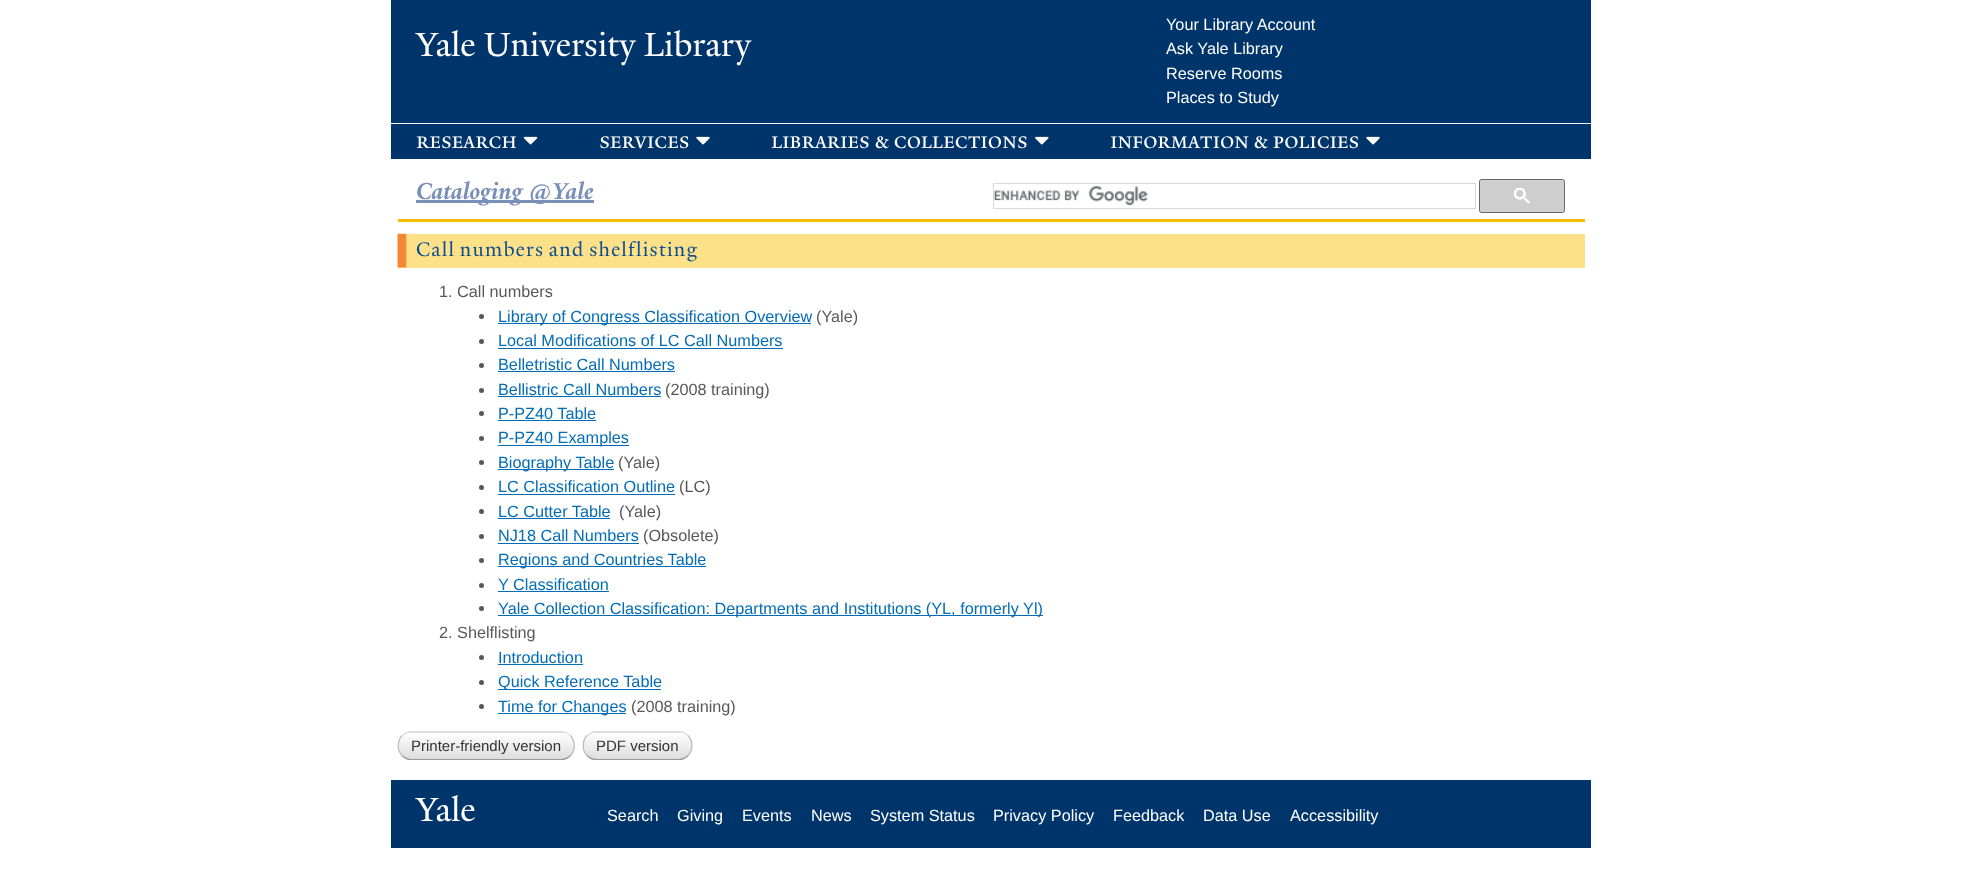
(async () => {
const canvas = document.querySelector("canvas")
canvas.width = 1982
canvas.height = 876
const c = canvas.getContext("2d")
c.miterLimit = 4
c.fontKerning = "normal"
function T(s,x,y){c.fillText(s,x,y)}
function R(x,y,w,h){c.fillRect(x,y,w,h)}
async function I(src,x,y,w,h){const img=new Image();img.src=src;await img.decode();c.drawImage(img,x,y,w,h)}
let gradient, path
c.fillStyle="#fff"
R(0,0,1982,876)
c.fillStyle="#00356b"
R(391,0,1200,123)
c.font="36.25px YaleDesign"
c.fillStyle="#fff"
T("Yale University Library",416,56)
c.font="16.25px Liberation Sans"
T("Your Library Account",1166,30)
T("Ask Yale Library",1166,54)
T("Reserve Rooms",1166,79)
T("Places to Study",1166,103)
c.fillStyle="#00356b"
R(391,124,1200,35)
c.letterSpacing="-0.4px"
c.font="500 23.75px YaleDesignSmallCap"
c.fillStyle="#fff"
T("research",416,148)
await I("1.png",523,136,15,9)
T("services",599,148)
await I("2.png",696,136,14,9)
T("libraries & collections",771,148)
await I("3.png",1035,136,14,9)
T("information & policies",1110,148)
await I("2.png",1366,136,14,9)
c.fillStyle="#f9be00"
R(398,219,1187,3)
c.fillStyle="#798fb8"
R(416,200,178,3)
c.letterSpacing="0px"
c.font="italic bold 25px YaleDesign"
T("Cataloging @Yale",416,199)
c.strokeStyle="#d9d9d9"
c.strokeRect(993.5,183.5,482,25)
await I("4.png",993,186,155,19)
c.fillStyle="#cecece"
c.beginPath()
c.roundRect(1479.5,179.5,85,33,2)
c.fill()
c.strokeStyle="#666"
c.stroke()
await I("5.png",1514,188,16,16)
c.fillStyle="#fce188"
R(398,234,1187,34)
await I("6.png",397,233,16,35)
c.letterSpacing="1.25px"
c.wordSpacing="-1.5px"
c.font="21.25px YaleDesign"
c.fillStyle="#0f4d92"
T("Call numbers and shelflisting",416,256)
c.letterSpacing="0px"
c.wordSpacing="0px"
c.font="16.25px Liberation Sans"
c.fillStyle="#585858"
T("1. Call numbers",439,297)
c.beginPath()
c.arc(481.5,316.5,2.5,0,7)
c.fill()
c.fillStyle="#026cb6"
R(498,323,313,1)
T("Library of Congress Classification Overview",498,322)
c.fillStyle="#585858"
T("(Yale)",816,322)
c.beginPath()
c.arc(481.5,341.5,2.5,0,7)
c.fill()
c.fillStyle="#026cb6"
T("Local Modifications of LC Call Numbers",498,346)
R(498,348,285,1)
c.fillStyle="#585858"
c.beginPath()
c.arc(481.5,365.5,2.5,0,7)
c.fill()
c.fillStyle="#026cb6"
T("Belletristic Call Numbers",498,370)
R(498,371,177,1)
c.fillStyle="#585858"
c.beginPath()
c.arc(481.5,390.5,2.5,0,7)
c.fill()
c.fillStyle="#026cb6"
T("Bellistric Call Numbers",498,395)
R(498,396,163,1)
c.fillStyle="#585858"
T("(2008 training)",665,395)
c.beginPath()
c.arc(481.5,413.5,2.5,0,7)
c.fill()
c.fillStyle="#026cb6"
T("P-PZ40 Table",498,419)
R(498,420,98,1)
c.fillStyle="#585858"
c.beginPath()
c.arc(481.5,438.5,2.5,0,7)
c.fill()
c.fillStyle="#026cb6"
R(498,445,131,1)
T("P-PZ40 Examples",498,443)
c.fillStyle="#585858"
c.beginPath()
c.arc(481.5,462.5,2.5,0,7)
c.fill()
c.fillStyle="#026cb6"
R(498,469,116,1)
T("Biography Table",498,468)
c.fillStyle="#585858"
T("(Yale)",618,468)
c.beginPath()
c.arc(481.5,487.5,2.5,0,7)
c.fill()
c.fillStyle="#026cb6"
T("LC Classification Outline",498,492)
R(498,494,177,1)
c.fillStyle="#585858"
T("(LC)",679,492)
c.beginPath()
c.arc(481.5,511.5,2.5,0,7)
c.fill()
c.fillStyle="#026cb6"
T("LC Cutter Table",498,517)
R(498,518,112,1)
c.fillStyle="#585858"
T("(Yale)",619,517)
c.beginPath()
c.arc(481.5,536.5,2.5,0,7)
c.fill()
c.fillStyle="#026cb6"
T("NJ18 Call Numbers",498,541)
R(498,543,141,1)
c.fillStyle="#585858"
T("(Obsolete)",643,541)
c.beginPath()
c.arc(481.5,560.5,2.5,0,7)
c.fill()
c.fillStyle="#026cb6"
R(498,566,208,1)
T("Regions and Countries Table",498,565)
c.fillStyle="#585858"
c.beginPath()
c.arc(481.5,585.5,2.5,0,7)
c.fill()
c.fillStyle="#026cb6"
T("Y Classification",498,590)
R(498,591,111,1)
c.fillStyle="#585858"
c.beginPath()
c.arc(481.5,608.5,2.5,0,7)
c.fill()
c.fillStyle="#026cb6"
R(498,615,545,1)
T("Yale Collection Classification: Departments and Institutions (YL, formerly Yl)",498,614)
c.fillStyle="#585858"
T("2. Shelflisting",439,638)
c.beginPath()
c.arc(481.5,657.5,2.5,0,7)
c.fill()
c.fillStyle="#026cb6"
T("Introduction",498,663)
R(498,664,85,1)
c.fillStyle="#585858"
c.beginPath()
c.arc(481.5,682.5,2.5,0,7)
c.fill()
c.fillStyle="#026cb6"
R(498,689,163,1)
T("Quick Reference Table",498,687)
c.fillStyle="#585858"
c.beginPath()
c.arc(481.5,706.5,2.5,0,7)
c.fill()
c.fillStyle="#026cb6"
R(498,713,128,1)
T("Time for Changes",498,712)
c.fillStyle="#585858"
T("(2008 training)",631,712)
c.save()
c.beginPath()
c.roundRect(398,731,177,29,14)
c.clip()
gradient = c.createLinearGradient(399,706,399,733)
gradient.addColorStop(0,"#fff")
gradient.addColorStop(1,"#ddd")
c.fillStyle = gradient
R(398,731,177,2)
gradient = c.createLinearGradient(399,733,399,759)
gradient.addColorStop(0,"#fff")
gradient.addColorStop(1,"#ddd")
c.fillStyle = gradient
R(398,733,177,26)
c.restore()
path = new Path2D("M402 735.5c2.5-2 6-3.5 9-3.5h150c3.5 0 7 1.5 9.5 3.5")
c.strokeStyle="#ddd"
c.lineWidth=1.2
c.stroke(path)
path = new Path2D("M570.5 735.5c5 5.5 5 15 0 20")
c.strokeStyle="#bbb"
c.stroke(path)
path = new Path2D("M570.5 755.5c-2.5 2.5-6 4-9.5 4h-150c-3 0-6.5-1.5-9-4")
c.strokeStyle="#999"
c.stroke(path)
path = new Path2D("M402 755.5c-5-5-5-14.5 0-20")
c.strokeStyle="#bbb"
c.stroke(path)
c.font="15px Liberation Sans"
c.fillStyle="#333"
T("Printer-friendly version",411,751)
c.save()
c.beginPath()
c.roundRect(583,731,110,29,14)
c.clip()
gradient = c.createLinearGradient(584,706,584,733)
gradient.addColorStop(0,"#fff")
gradient.addColorStop(1,"#ddd")
c.fillStyle = gradient
R(583,731,110,2)
gradient = c.createLinearGradient(584,733,584,759)
gradient.addColorStop(0,"#fff")
gradient.addColorStop(1,"#ddd")
c.fillStyle = gradient
R(583,733,110,26)
c.restore()
path = new Path2D("M587 735.5c2.5-2 6-3.5 9-3.5h83c3 0 6.5 1.5 9 3.5")
c.strokeStyle="#ddd"
c.stroke(path)
path = new Path2D("M688 735.5c5 5.5 5 15 0 20")
c.strokeStyle="#bbb"
c.stroke(path)
path = new Path2D("M688 755.5c-2.5 2.5-6 4-9 4h-83c-3 0-6.5-1.5-9-4")
c.strokeStyle="#999"
c.stroke(path)
path = new Path2D("M587 755.5c-5-5-5-14.5 0-20")
c.strokeStyle="#bbb"
c.stroke(path)
T("PDF version",596,751)
c.fillStyle="#00356b"
R(391,780,1200,68)
c.font="36.25px YaleDesign"
c.fillStyle="#fff"
T("Yale",416,821)
c.font="16.25px Liberation Sans"
T("Search",607,821)
T("Giving",677,821)
T("Events",742,821)
T("News",811,821)
T("System Status",870,821)
T("Privacy Policy",993,821)
T("Feedback",1113,821)
T("Data Use",1203,821)
T("Accessibility",1290,821)
})()
